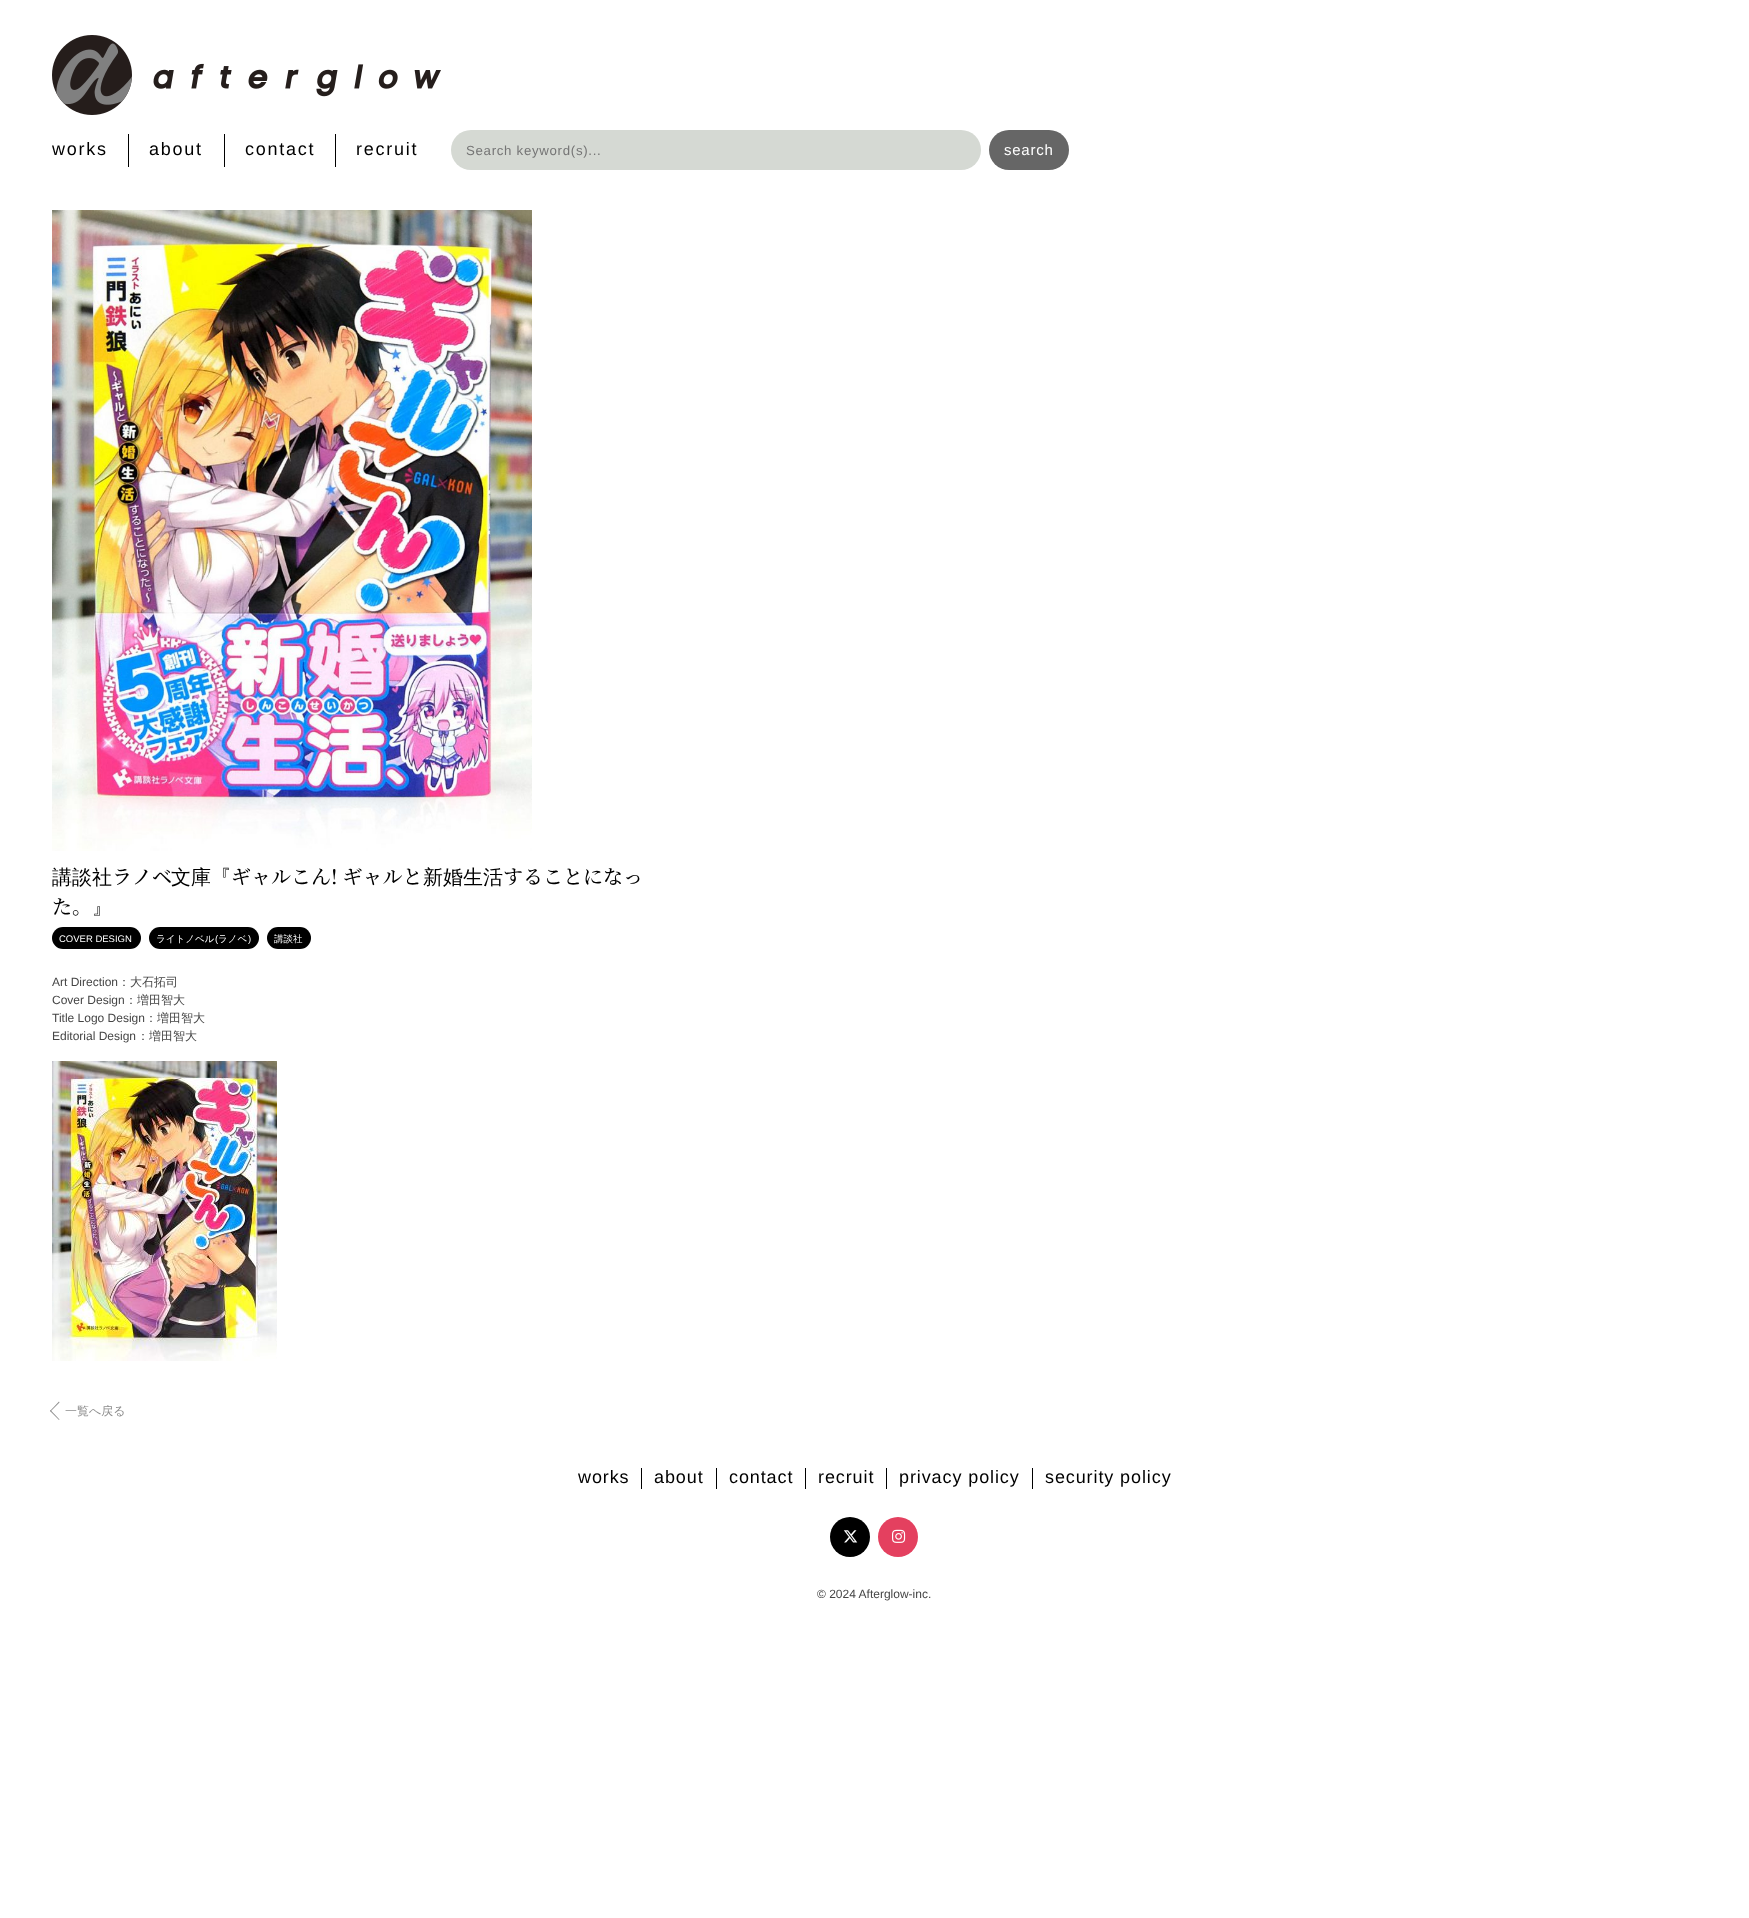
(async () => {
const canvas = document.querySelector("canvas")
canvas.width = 1749
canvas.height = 1918
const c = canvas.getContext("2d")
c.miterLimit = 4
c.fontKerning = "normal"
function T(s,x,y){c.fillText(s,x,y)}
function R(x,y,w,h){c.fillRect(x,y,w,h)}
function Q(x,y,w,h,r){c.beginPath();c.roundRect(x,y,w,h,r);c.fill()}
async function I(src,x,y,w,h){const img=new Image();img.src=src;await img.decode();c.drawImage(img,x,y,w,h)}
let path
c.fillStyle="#fff"
R(0,0,1749,1918)
await I("1.png",52,35,389,80)
c.letterSpacing="1.75px"
c.font="18px 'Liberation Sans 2'"
c.fillStyle="#000"
T("works",52,155)
R(128,134,1,33)
T("about",149,155)
R(224,134,1,33)
T("contact",245,155)
R(335,134,1,33)
T("recruit",356,155)
c.fillStyle="#d5d9d3"
Q(451,130,530,40,20)
c.letterSpacing="0.7px"
c.font="13.25px 'Liberation Sans 2'"
c.fillStyle="#757575"
T("Search keyword(s)...",466,155)
c.fillStyle="#666"
Q(989,130,80,40,20)
c.letterSpacing="0.75px"
c.font="15px 'Liberation Sans 2'"
c.fillStyle="#fff"
T("search",1004,155)
await I("2.png",52,210,480,641)
c.letterSpacing="0px"
c.font="500 20px WenQuanYi Zen Hei"
c.fillStyle="#000"
T("講談社",52,884)
c.font="500 20px Noto Serif JP"
T("ラノベ",112,884)
c.font="500 20px WenQuanYi Zen Hei"
T("文庫『",171,884)
c.font="500 20px Noto Serif JP"
T("ギャルこん! ギャルと",231,884)
c.font="500 20px WenQuanYi Zen Hei"
T("新婚生活",423,884)
c.font="500 20px Noto Serif JP"
T("することになっ",503,884)
T("た。",52,914)
c.font="500 20px WenQuanYi Zen Hei"
T("』",92,914)
Q(52,927,89,22,11)
c.font="9.5px 'Liberation Sans 2'"
c.fillStyle="#fff"
T("COVER DESIGN",59,942)
c.fillStyle="#000"
Q(149,927,110,22,11)
c.font="500 9.5px WenQuanYi Zen Hei"
c.fillStyle="#fff"
T("ライトノベル",156,942)
c.font="9.5px 'Liberation Sans 2'"
T("(",215,942)
c.font="500 9.5px WenQuanYi Zen Hei"
T("ラノベ",218,942)
c.font="9.5px 'Liberation Sans 2'"
T(")",248,942)
c.fillStyle="#000"
Q(267,927,44,22,11)
c.font="500 9.5px WenQuanYi Zen Hei"
c.fillStyle="#fff"
T("講談社",274,942)
c.font="12px Liberation Sans"
c.fillStyle="#454545"
T("Art Direction",52,986)
c.font="500 12px WenQuanYi Zen Hei"
T("：大石拓司",118,986)
c.font="12px Liberation Sans"
T("Cover Design",52,1004)
c.font="500 12px WenQuanYi Zen Hei"
T("：増田智大",125,1004)
c.font="12px Liberation Sans"
T("Title Logo Design",52,1022)
c.font="500 12px WenQuanYi Zen Hei"
T("：増田智大",145,1022)
c.font="12px Liberation Sans"
T("Editorial Design",52,1040)
c.font="500 12px WenQuanYi Zen Hei"
T("：増田智大",137,1040)
await I("3.png",52,1061,225,300)
c.fillStyle="#8e8e8e"
path = new Path2D("M50.5 1410l9 9.5l-.5 .5l-9-9z")
c.fill(path)
path = new Path2D("M59 1401.5l.5 1l-9 9l-.5-.5z")
c.fill(path)
T("一覧へ戻る",65,1415)
c.letterSpacing="0.9px"
c.font="18px 'Liberation Sans 2'"
c.fillStyle="#000"
T("works",578,1483)
R(641,1468,1,21)
T("about",654,1483)
R(716,1468,1,21)
T("contact",729,1483)
R(805,1468,1,21)
T("recruit",818,1483)
R(886,1468,1,21)
T("privacy policy",899,1483)
R(1032,1468,1,21)
T("security policy",1045,1483)
c.beginPath()
c.arc(850,1537,20,0,7)
c.fill()
await I("4.png",843,1530,15,13)
c.fillStyle="#e4405f"
c.beginPath()
c.arc(898,1537,20,0,7)
c.fill()
await I("5.png",892,1529,14,14)
c.letterSpacing="0px"
c.font="12px Liberation Sans"
c.fillStyle="#454545"
T("© 2024 Afterglow-inc.",817,1598)
})()
